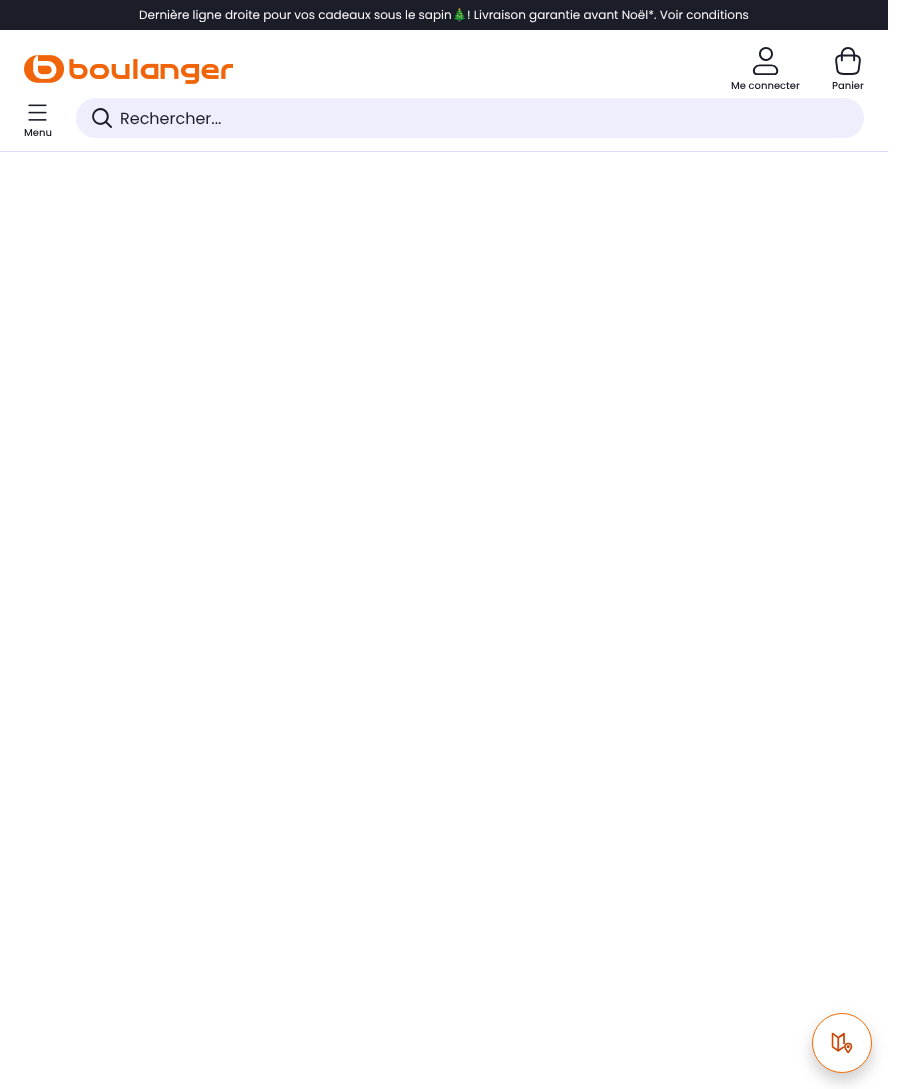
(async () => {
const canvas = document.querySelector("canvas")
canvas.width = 906
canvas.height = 1089
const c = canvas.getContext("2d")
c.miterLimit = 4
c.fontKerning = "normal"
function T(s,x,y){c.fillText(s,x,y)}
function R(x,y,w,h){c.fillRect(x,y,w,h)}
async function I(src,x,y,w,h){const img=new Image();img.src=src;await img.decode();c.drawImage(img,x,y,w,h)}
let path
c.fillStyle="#fff"
R(0,0,906,1089)
c.fillStyle="#1b1d29"
R(0,0,888,30)
c.save()
c.beginPath()
c.rect(139,8,610,14)
c.clip()
c.font="12px Poppins"
c.fillStyle="#fff"
T("Dernière ligne droite pour vos cadeaux sous le sapin",139,19)
c.restore()
c.font="12px Noto Color Emoji"
c.fillStyle="#fff"
T("🎄",452,19)
c.font="12px Poppins"
T("! Livraison garantie avant Noël*. Voir conditions",467,19)
c.save()
path = new Path2D("M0 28h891v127h-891zm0 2h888v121h-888z")
c.clip(path,"evenodd")
c.fillStyle="#dbdbf9"
c.filter="blur(0.5px)"
c.beginPath()
c.rect(0,31,888,121)
c.fill()
c.filter="none"
c.restore()
await I("1.png",24,55,209,29)
await I("2.png",752,47,27,28)
c.font="500 10px Poppins"
c.fillStyle="#1b1d29"
T("Me connecter",731,89)
await I("3.png",835,47,26,28)
T("Panier",832,89)
c.fillStyle="#efeefc"
c.beginPath()
c.roundRect(76,98,44,40,[20,0,0,20])
c.fill()
await I("4.png",92,108,20,20)
c.beginPath()
c.roundRect(120,98,744,40,[0,20,20,0])
c.fill()
c.font="16px Poppins"
c.fillStyle="#1b1d29"
T("Rechercher...",120,124)
await I("5.png",28,104,19,17)
c.font="500 10px Poppins"
T("Menu",24,136)
c.fillStyle="#3b3b3b40"
c.filter="blur(7.5px)"
c.beginPath()
c.roundRect(812,1021,60,60,30)
c.fill()
c.filter="none"
c.fillStyle="#fff"
c.beginPath()
c.arc(842,1043,29.5,0,7)
c.fill()
c.strokeStyle="#f56a00"
c.stroke()
await I("6.png",831,1032,22,22)
})()
